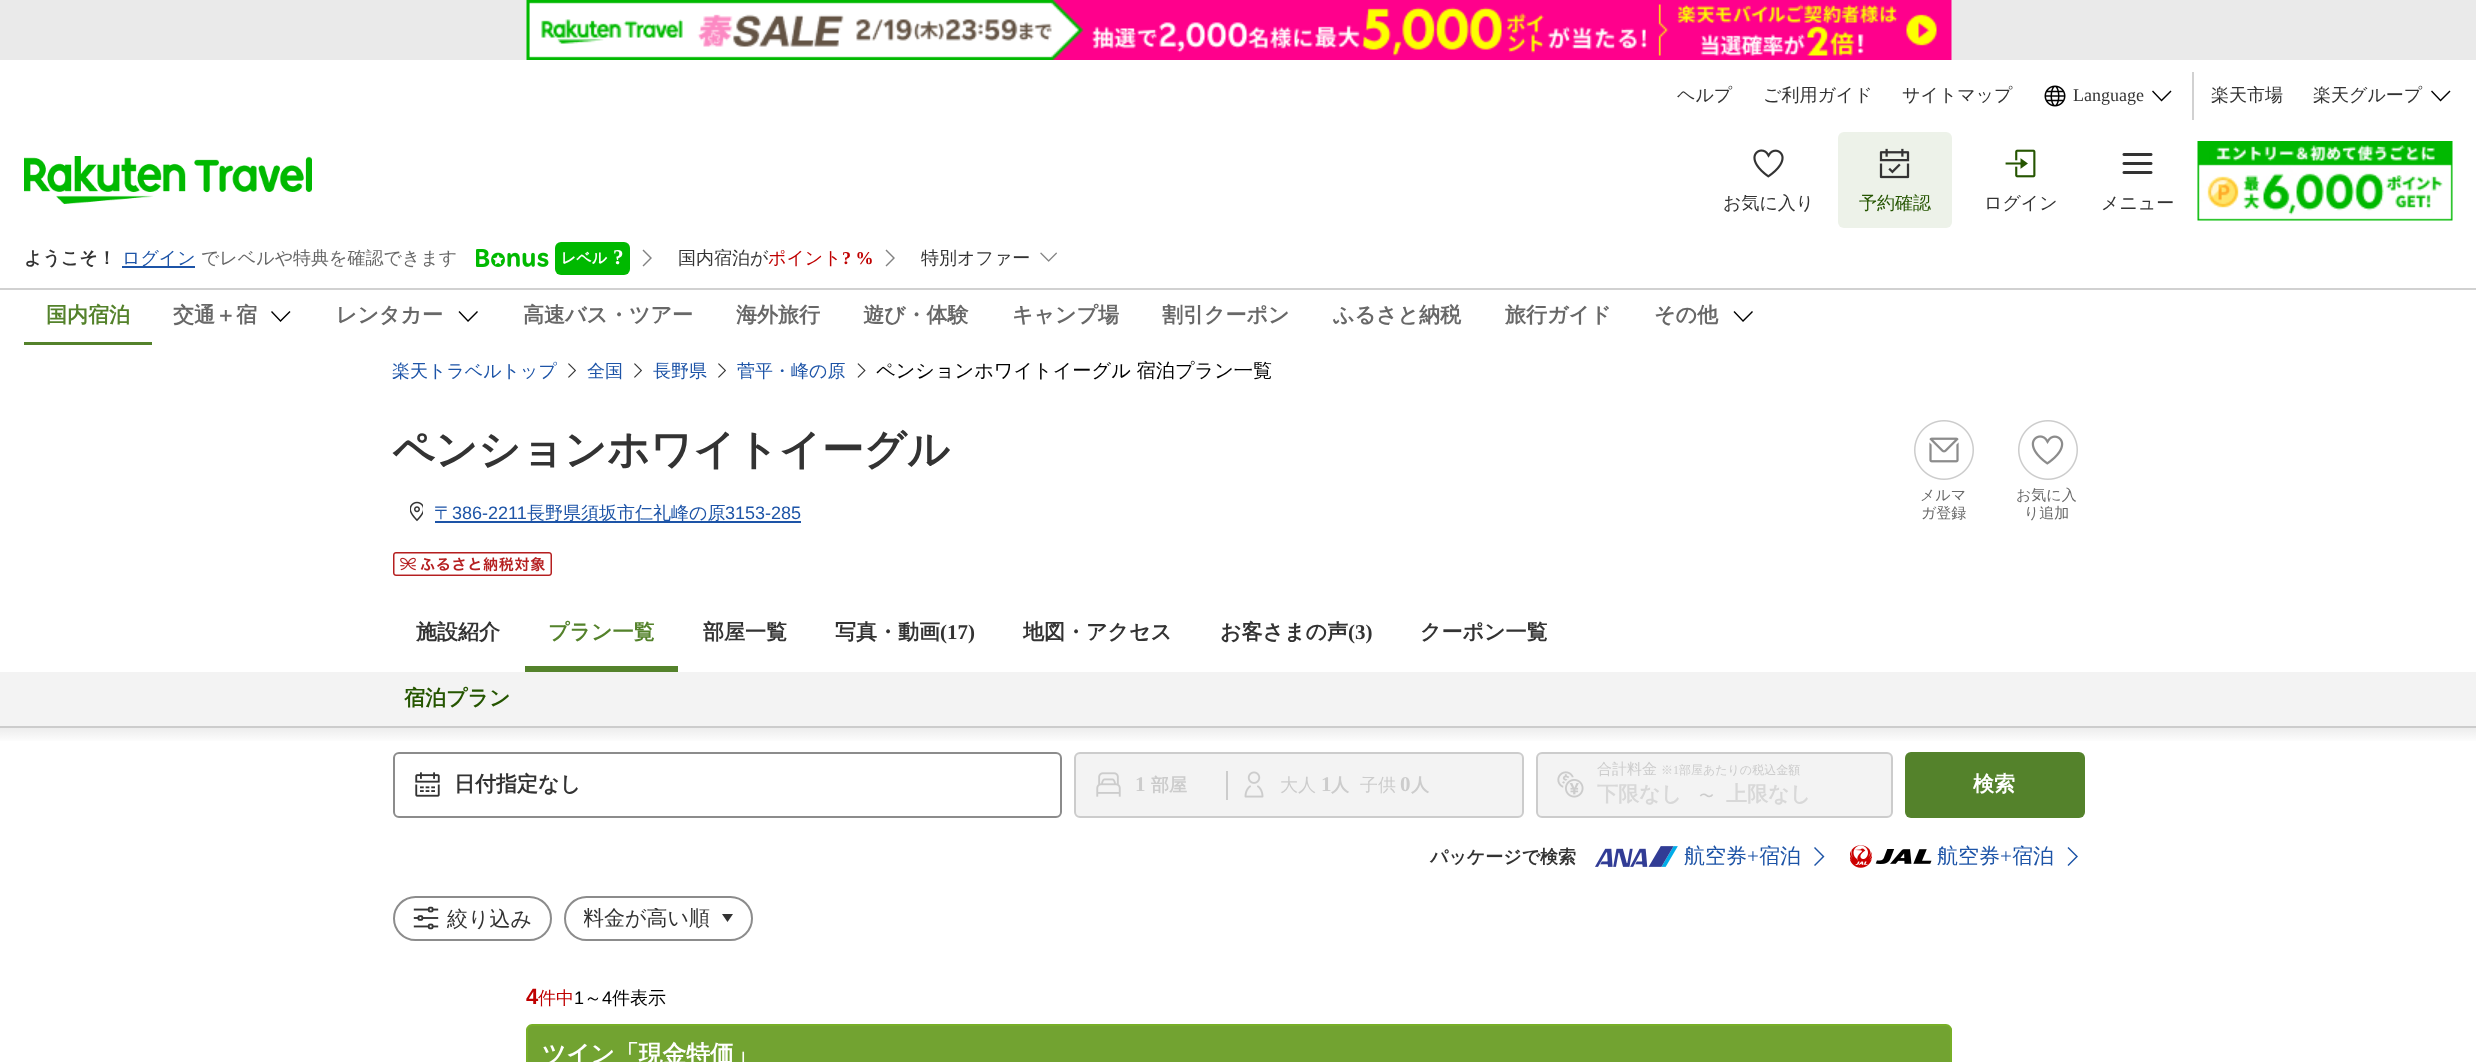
(async () => {
const canvas = document.querySelector("canvas")
canvas.width = 2476
canvas.height = 1062
const c = canvas.getContext("2d")
c.miterLimit = 4
c.fontKerning = "normal"
function T(s,x,y){c.fillText(s,x,y)}
function R(x,y,w,h){c.fillRect(x,y,w,h)}
function Q(x,y,w,h,r){c.beginPath();c.roundRect(x,y,w,h,r);c.fill()}
async function I(src,x,y,w,h){const img=new Image();img.src=src;await img.decode();c.drawImage(img,x,y,w,h)}
let gradient, path
c.fillStyle="#fff"
R(0,0,2476,1062)
c.fillStyle="#eaeaea"
R(0,0,2476,60)
await I("1.png",526,0,1426,60)
c.font="500 18px WenQuanYi Zen Hei"
c.fillStyle="#333"
T("ヘルプ",1677,101)
T("ご利用ガイド",1763,101)
T("サイトマップ",1902,101)
await I("2.png",2044,85,22,22)
c.font="18px Liberation Serif"
T("Language",2073,101)
c.fillStyle="#000"
path = new Path2D("M2171.5 91.5l-1-1l-9 9l-8.5-9l-1 1l9.5 10z")
c.fill(path,"evenodd")
c.fillStyle="#d1d1d1"
R(2192,72,2,48)
c.font="500 18px WenQuanYi Zen Hei"
c.fillStyle="#333"
T("楽天市場",2211,101)
T("楽天グループ",2313,101)
c.fillStyle="#000"
path = new Path2D("M2450.5 91.5l-1-1l-9 9l-8.5-9l-1 1l9.5 10z")
c.fill(path,"evenodd")
await I("3.png",24,156,288,48)
await I("4.png",1753,149,31,29)
c.fillStyle="#333"
T("お気に入り",1723,209)
c.fillStyle="#edf2e9"
Q(1838,132,114,96,6)
await I("5.png",1879,148,31,31)
c.fillStyle="#255500"
T("予約確認",1859,209)
await I("6.png",2005,149,31,29)
c.fillStyle="#333"
T("ログイン",1984,209)
await I("7.png",2122,153,31,21)
T("メニュー",2101,209)
await I("8.png",2197,141,256,80)
c.font="bold 18px WenQuanYi Zen Hei"
T("ようこそ！",24,264)
c.fillStyle="#1d54a7"
R(122,266,73,2)
c.font="500 18px WenQuanYi Zen Hei"
T("ログイン",122,264)
c.fillStyle="#686868"
T("でレベルや特典を確認できます",201,264)
await I("9.png",476,249,73,18)
c.fillStyle="#00b900"
Q(555,242,75,33,6)
c.font="bold 15px WenQuanYi Zen Hei"
c.fillStyle="#fff"
T("レベル",561,263)
c.font="bold 21px Liberation Serif"
T("?",613,264)
c.fillStyle="#828282"
path = new Path2D("M643.5 249.5l-1 1l7.5 7.5l-7.5 7.5l1 1l8.5-8.5z")
c.fill(path,"evenodd")
c.font="500 18px WenQuanYi Zen Hei"
c.fillStyle="#333"
T("国内宿泊が",678,264)
c.fillStyle="#bf0000"
T("ポイント",768,264)
c.font="bold 18px Liberation Serif"
T("? %",842,264)
c.fillStyle="#828282"
path = new Path2D("M886.5 249.5l-1 1l7.5 7.5l-7.5 7.5l1 1l8.5-8.5z")
c.fill(path,"evenodd")
c.font="500 18px WenQuanYi Zen Hei"
c.fillStyle="#333"
T("特別オファー",921,264)
await I("10.png",1040,252,17,10)
c.fillStyle="#d1d1d1"
R(0,288,2476,2)
c.fillStyle="#54822b"
R(24,342,128,3)
c.font="bold 21px WenQuanYi Zen Hei"
T("国内宿泊",46,322)
c.fillStyle="#686868"
T("交通＋宿",173,322)
c.fillStyle="#000"
path = new Path2D("M290.5 312l-1-1l-9 9l-8.5-9l-1 1l9.5 10z")
c.fill(path,"evenodd")
c.fillStyle="#686868"
T("レンタカー",336,322)
c.fillStyle="#000"
path = new Path2D("M478 312l-1-1l-9 9l-8.5-9l-1 1l9.5 10z")
c.fill(path,"evenodd")
c.fillStyle="#686868"
T("高速バス・ツアー",523,322)
T("海外旅行",736,322)
T("遊び・体験",863,322)
T("キャンプ場",1012,322)
T("割引クーポン",1162,322)
T("ふるさと納税",1333,322)
T("旅行ガイド",1505,322)
T("その他",1654,322)
c.fillStyle="#000"
path = new Path2D("M1753 312l-1-1l-9 9l-8.5-9l-1 1l9.5 10z")
c.fill(path,"evenodd")
c.font="500 18px WenQuanYi Zen Hei"
c.fillStyle="#1d54a7"
T("楽天トラベルトップ",392,377)
await I("11.png",568,363,8,15)
T("全国",587,377)
await I("11.png",634,363,8,15)
T("長野県",653,377)
await I("11.png",718,363,8,15)
T("菅平・峰の原",737,377)
await I("12.png",857,363,9,15)
c.font="500 19.2px WenQuanYi Zen Hei"
c.fillStyle="#000"
T("ペンションホワイトイーグル 宿泊プラン一覧",876,377)
c.font="bold 42px WenQuanYi Zen Hei"
c.fillStyle="#333"
T("ペンションホワイトイーグル",392,464)
await I("13.png",410,501,13,21)
c.font="500 18px WenQuanYi Zen Hei"
c.fillStyle="#1d54a7"
T("〒",434,519)
R(435,521,366,2)
c.font="18px Liberation Sans"
T("386-2211",452,519)
c.font="500 18px WenQuanYi Zen Hei"
T("長野県須坂市仁礼峰の原",527,519)
c.font="18px Liberation Sans"
T("3153-285",725,519)
await I("14.png",393,552,159,24)
await I("15.png",1914,420,60,60)
c.font="500 15px WenQuanYi Zen Hei"
c.fillStyle="#686868"
T("メルマ",1920,500)
T("ガ登録",1921,518)
await I("16.png",2018,420,60,60)
T("お気に入",2016,500)
T("り追加",2024,518)
c.font="bold 21px WenQuanYi Zen Hei"
c.fillStyle="#333"
T("施設紹介",416,639)
c.fillStyle="#54822b"
R(525,666,153,6)
T("プラン一覧",548,639)
c.fillStyle="#333"
T("部屋一覧",703,639)
T("写真・動画",835,639)
c.font="bold 21px Liberation Serif"
T("(17)",940,639)
c.font="bold 21px WenQuanYi Zen Hei"
T("地図・アクセス",1023,639)
T("お客さまの声",1220,639)
c.font="bold 21px Liberation Serif"
T("(3)",1348,639)
c.font="bold 21px WenQuanYi Zen Hei"
T("クーポン一覧",1420,639)
gradient = c.createLinearGradient(1238,743,1238,728)
gradient.addColorStop(0,"#fff")
gradient.addColorStop(1,"#ededed")
c.fillStyle = gradient
R(0,728,2476,13)
c.fillStyle="#f3f3f3"
R(0,672,2476,54)
c.fillStyle="#ccc"
R(0,726,2476,2)
c.fillStyle="#255500"
T("宿泊プラン",404,705)
c.beginPath()
c.roundRect(394,753,667,64,5)
c.strokeStyle="#8c8c8c"
c.lineWidth=2
c.stroke()
await I("17.png",415,772,25,25)
c.fillStyle="#333"
T("日付指定なし",454,791)
c.fillStyle="#f3f3f3"
c.beginPath()
c.roundRect(1075,753,448,64,5)
c.fill()
c.strokeStyle="#ccc"
c.stroke()
c.fillStyle="#ccc"
R(1226,771,2,29)
await I("18.png",1096,772,25,25)
c.font="bold 21px Liberation Serif"
T("1",1135,791)
c.font="bold 18px WenQuanYi Zen Hei"
T("部屋",1151,791)
await I("19.png",1244,771,20,27)
c.font="500 18px WenQuanYi Zen Hei"
T("大人",1280,791)
c.font="bold 21px Liberation Serif"
T("1",1321,791)
c.font="bold 18px WenQuanYi Zen Hei"
T("人",1331,791)
c.font="500 18px WenQuanYi Zen Hei"
T("子供",1360,791)
c.font="bold 21px Liberation Serif"
T("0",1400,791)
c.font="bold 18px WenQuanYi Zen Hei"
T("人",1411,791)
c.fillStyle="#f3f3f3"
c.beginPath()
c.roundRect(1537,753,355,64,5)
c.fill()
c.stroke()
await I("20.png",1557,771,27,27)
c.font="500 15px WenQuanYi Zen Hei"
c.fillStyle="#ccc"
T("合計料金",1597,774)
c.font="500 12px WenQuanYi Zen Hei"
T("※",1661,774)
c.font="12px Liberation Serif"
T("1",1673,774)
c.font="500 12px WenQuanYi Zen Hei"
T("部屋あたりの税込金額",1679,774)
c.font="bold 21px WenQuanYi Zen Hei"
c.fillStyle="#d8d8d8"
T("下限なし",1597,801)
c.font="500 15px WenQuanYi Zen Hei"
c.fillStyle="#ccc"
T("〜",1699,801)
c.font="bold 21px WenQuanYi Zen Hei"
c.fillStyle="#d8d8d8"
T("上限なし",1726,801)
c.fillStyle="#54822b"
Q(1905,752,180,66,6)
c.fillStyle="#fff"
T("検索",1973,791)
c.font="bold 18px WenQuanYi Zen Hei"
c.fillStyle="#333"
T("パッケージで検索",1430,863)
await I("21.png",1595,846,83,21)
c.font="500 21px WenQuanYi Zen Hei"
c.fillStyle="#1d54a7"
T("航空券",1684,863)
c.font="21px Liberation Serif"
T("+",1747,863)
c.font="500 21px WenQuanYi Zen Hei"
T("宿泊",1759,863)
path = new Path2D("M1815 847l-1 1l8.5 8.5l-8.5 8.5l1 1l9.5-9.5z")
c.fill(path,"evenodd")
await I("22.png",1850,845,82,23)
T("航空券",1937,863)
c.font="21px Liberation Serif"
T("+",2000,863)
c.font="500 21px WenQuanYi Zen Hei"
T("宿泊",2012,863)
path = new Path2D("M2068.5 847l-1 1l8.5 8.5l-8.5 8.5l1 1l9.5-9.5z")
c.fill(path,"evenodd")
c.beginPath()
c.roundRect(394,897,157,43,21.5)
c.strokeStyle="#8c8c8c"
c.stroke()
await I("23.png",413,906,26,24)
c.fillStyle="#333"
T("絞り込み",447,926)
c.beginPath()
c.roundRect(565,897,187,43,21.5)
c.stroke()
c.save()
c.beginPath()
c.rect(584,908,130,22)
c.clip()
T("料金が高い順",583,925)
c.restore()
path = new Path2D("M727.5 922l-5.5-8h11z")
c.fill(path,"evenodd")
c.font="bold 22px Liberation Sans"
c.fillStyle="#bf0000"
T("4",526,1004)
c.font="500 18px WenQuanYi Zen Hei"
T("件中",538,1004)
c.font="18px Liberation Sans"
c.fillStyle="#000"
T("1",574,1004)
c.font="500 18px WenQuanYi Zen Hei"
T("～",584,1004)
c.font="18px Liberation Sans"
T("4",602,1004)
c.font="500 18px WenQuanYi Zen Hei"
T("件表示",612,1004)
c.fillStyle="#72a331"
path = new Path2D("M533 1025h1413c3.5 0 6 2.5 6 6v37h-1425v-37c0-3.5 2.5-6 6-6z")
c.fill(path)
c.fillStyle="#77af27"
path = new Path2D("M532 1024h1414c3 0 6 3 6 6v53h-1426v-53c0-3 3-6 6-6zm0 2h1414c2 0 4 2 4 4v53h-1422v-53c0-2 2-4 4-4z")
c.fill(path,"evenodd")
c.font="bold 23.75px WenQuanYi Zen Hei"
c.fillStyle="#fff"
T("ツイン「現金特価」",542,1062)
})()
